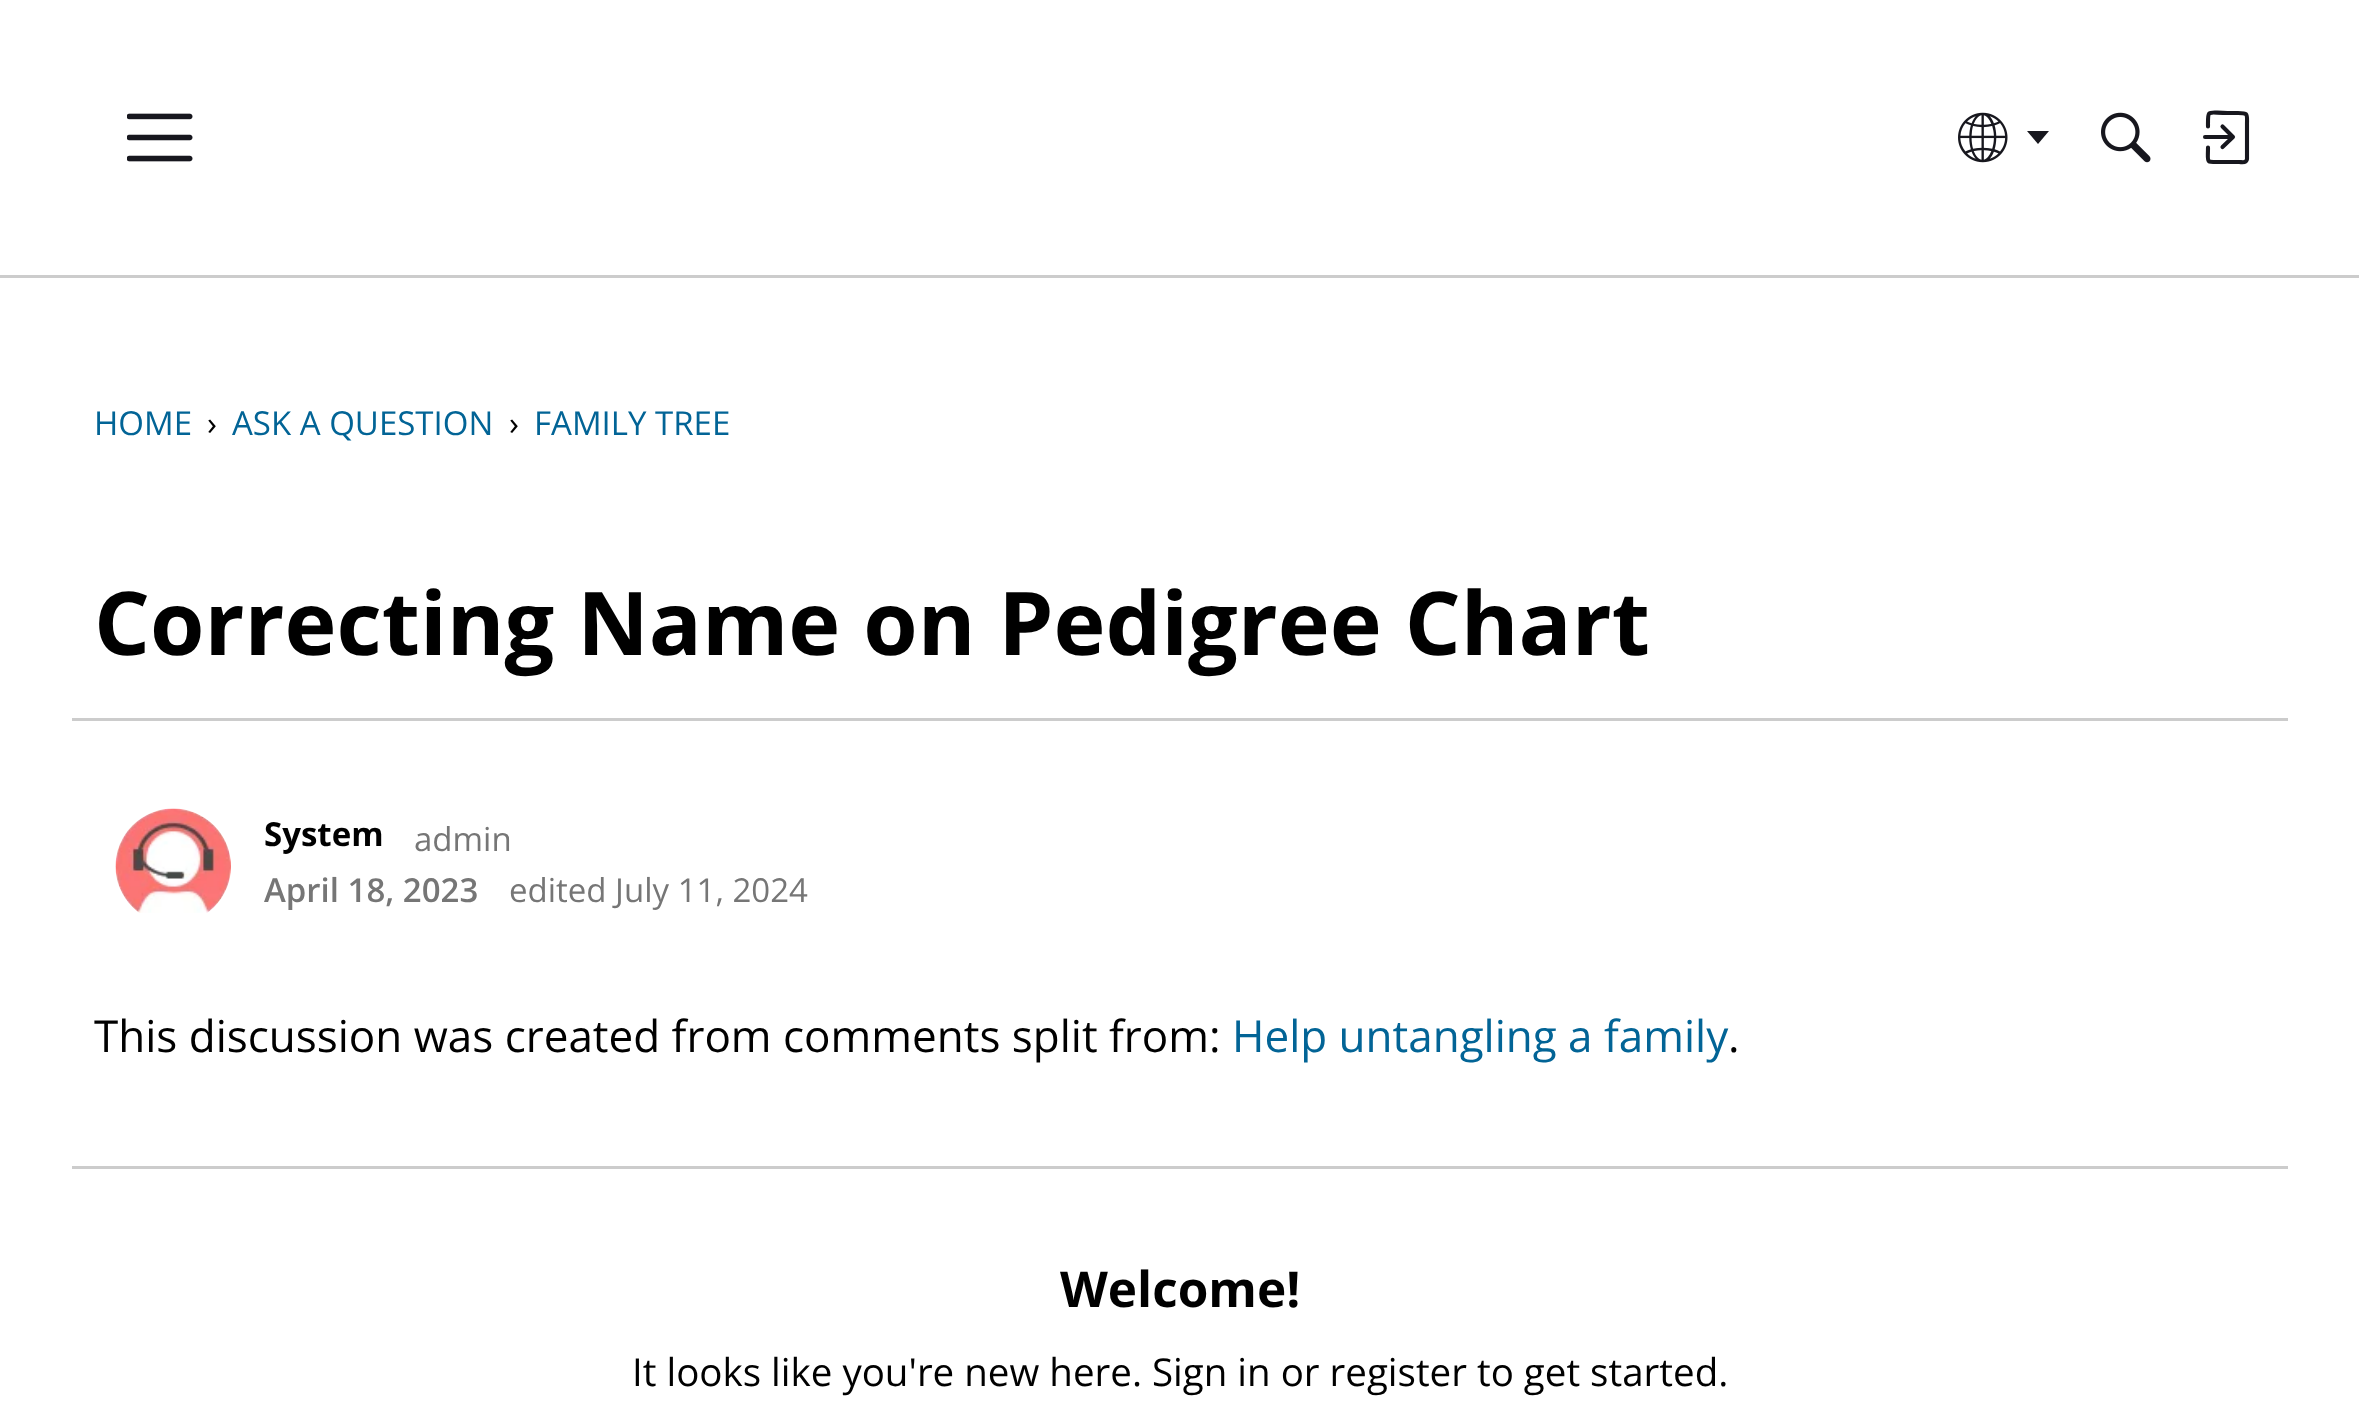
(async () => {
const canvas = document.querySelector("canvas")
canvas.width = 2359
canvas.height = 1415
const c = canvas.getContext("2d")
c.miterLimit = 4
c.fontKerning = "normal"
function T(s,x,y){c.fillText(s,x,y)}
function R(x,y,w,h){c.fillRect(x,y,w,h)}
async function I(src,x,y,w,h){const img=new Image();img.src=src;await img.decode();c.drawImage(img,x,y,w,h)}
let path
c.fillStyle="#fff"
R(0,0,2359,1415)
c.fillStyle="#ccc"
R(0,275,2359,3)
await I("1.png",127,113,66,49)
await I("2.png",1958,112,50,51)
c.fillStyle="#17171e"
path = new Path2D("M2027 131h22l-11 13z")
c.fill(path)
await I("3.png",2101,112,50,51)
path = new Path2D("M2222.5 147l10.5-10l-10.5-10.5")
c.strokeStyle="#17171e"
c.lineWidth=4.1
c.lineCap="round"
c.lineJoin="round"
c.stroke(path)
path = new Path2D("M2232 137h-27")
c.lineJoin="miter"
c.stroke(path)
path = new Path2D("M2208 126.5c0-18-1.5-13.5 19.5-13.5h10.5c10.5 0 9 1 9 11.5v34.5c-.5 4.5-5 3-8 3h-16.5c-17.5 0-14.5 2-14.5-14.5")
c.lineJoin="round"
c.stroke(path)
c.font="33px Open Sans"
c.fillStyle="#026496"
T("HOME",94,435)
c.fillStyle="#000"
T("›",207,435)
c.fillStyle="#026496"
T("ASK A QUESTION",232,435)
c.fillStyle="#000"
T("›",509,435)
c.fillStyle="#026496"
T("FAMILY TREE",534,435)
c.font="bold 88px Open Sans"
c.fillStyle="#000"
T("Correcting Name on Pedigree Chart",94,655)
c.fillStyle="#ccc"
R(72,718,2216,3)
await I("4.png",115,808,116,105)
c.font="bold 33px Open Sans"
c.fillStyle="#000"
T("System",264,846)
c.font="33px Open Sans"
c.fillStyle="#767676"
T("admin",414,851)
c.font="600 33px Open Sans"
T("April 18, 2023",264,902)
c.font="33px Open Sans"
T("edited July 11, 2024",509,902)
c.font="44px Open Sans"
c.fillStyle="#000"
T("This discussion was created from comments split from:",94,1052)
c.fillStyle="#026496"
T("Help untangling a family",1232,1052)
c.fillStyle="#000"
T(".",1728,1052)
c.fillStyle="#ccc"
R(72,1166,2216,3)
c.font="bold 49.5px Open Sans"
c.fillStyle="#000"
T("Welcome!",1060,1307)
c.font="38.5px Open Sans"
T("It looks like you're new here. Sign in or register to get started.",632,1386)
})()
